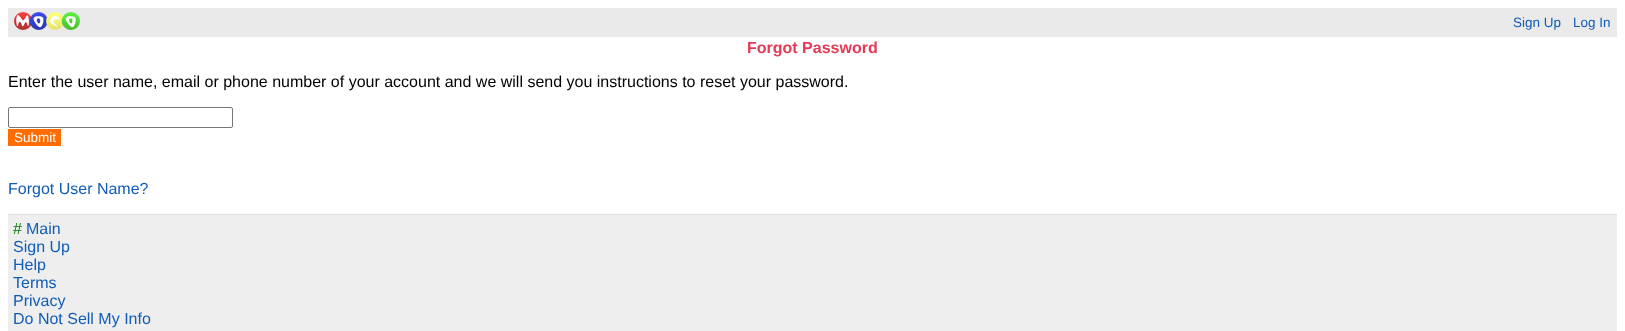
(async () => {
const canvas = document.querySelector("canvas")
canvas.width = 1625
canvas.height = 331
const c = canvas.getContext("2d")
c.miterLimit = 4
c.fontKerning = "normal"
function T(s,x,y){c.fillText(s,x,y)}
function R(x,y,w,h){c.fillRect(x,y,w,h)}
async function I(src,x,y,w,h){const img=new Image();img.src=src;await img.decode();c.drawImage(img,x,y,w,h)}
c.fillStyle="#fff"
R(0,0,1625,331)
c.fillStyle="#eaeaea"
R(8,8,1609,29)
await I("1.png",14,12,66,18)
c.font="13.5px Liberation Sans"
c.fillStyle="#105cb6"
T("Sign Up",1513,27)
T("Log In",1573,27)
c.font="bold 16px Liberation Sans"
c.fillStyle="#e63955"
T("Forgot Password",747,53)
c.font="16px Liberation Sans"
c.fillStyle="#000"
T("Enter the user name, email or phone number of your account and we will send you instructions to reset your password.",8,87)
c.beginPath()
c.roundRect(8.5,107.5,224,20,1.5)
c.strokeStyle="#767676"
c.stroke()
c.fillStyle="#ff6c00"
R(8,129,53,17)
c.font="13.5px Liberation Sans"
c.fillStyle="#fff"
T("Submit",14,142)
c.font="16px Liberation Sans"
c.fillStyle="#105cb6"
T("Forgot User Name?",8,194)
c.fillStyle="#eee"
R(8,215,1609,116)
c.fillStyle="#ddd"
R(8,214,1609,1)
c.fillStyle="#008000"
T("#",13,234)
c.fillStyle="#105cb6"
T("Main",26,234)
T("Sign Up",13,252)
T("Help",13,270)
T("Terms",13,288)
T("Privacy",13,306)
T("Do Not Sell My Info",13,324)
})()
